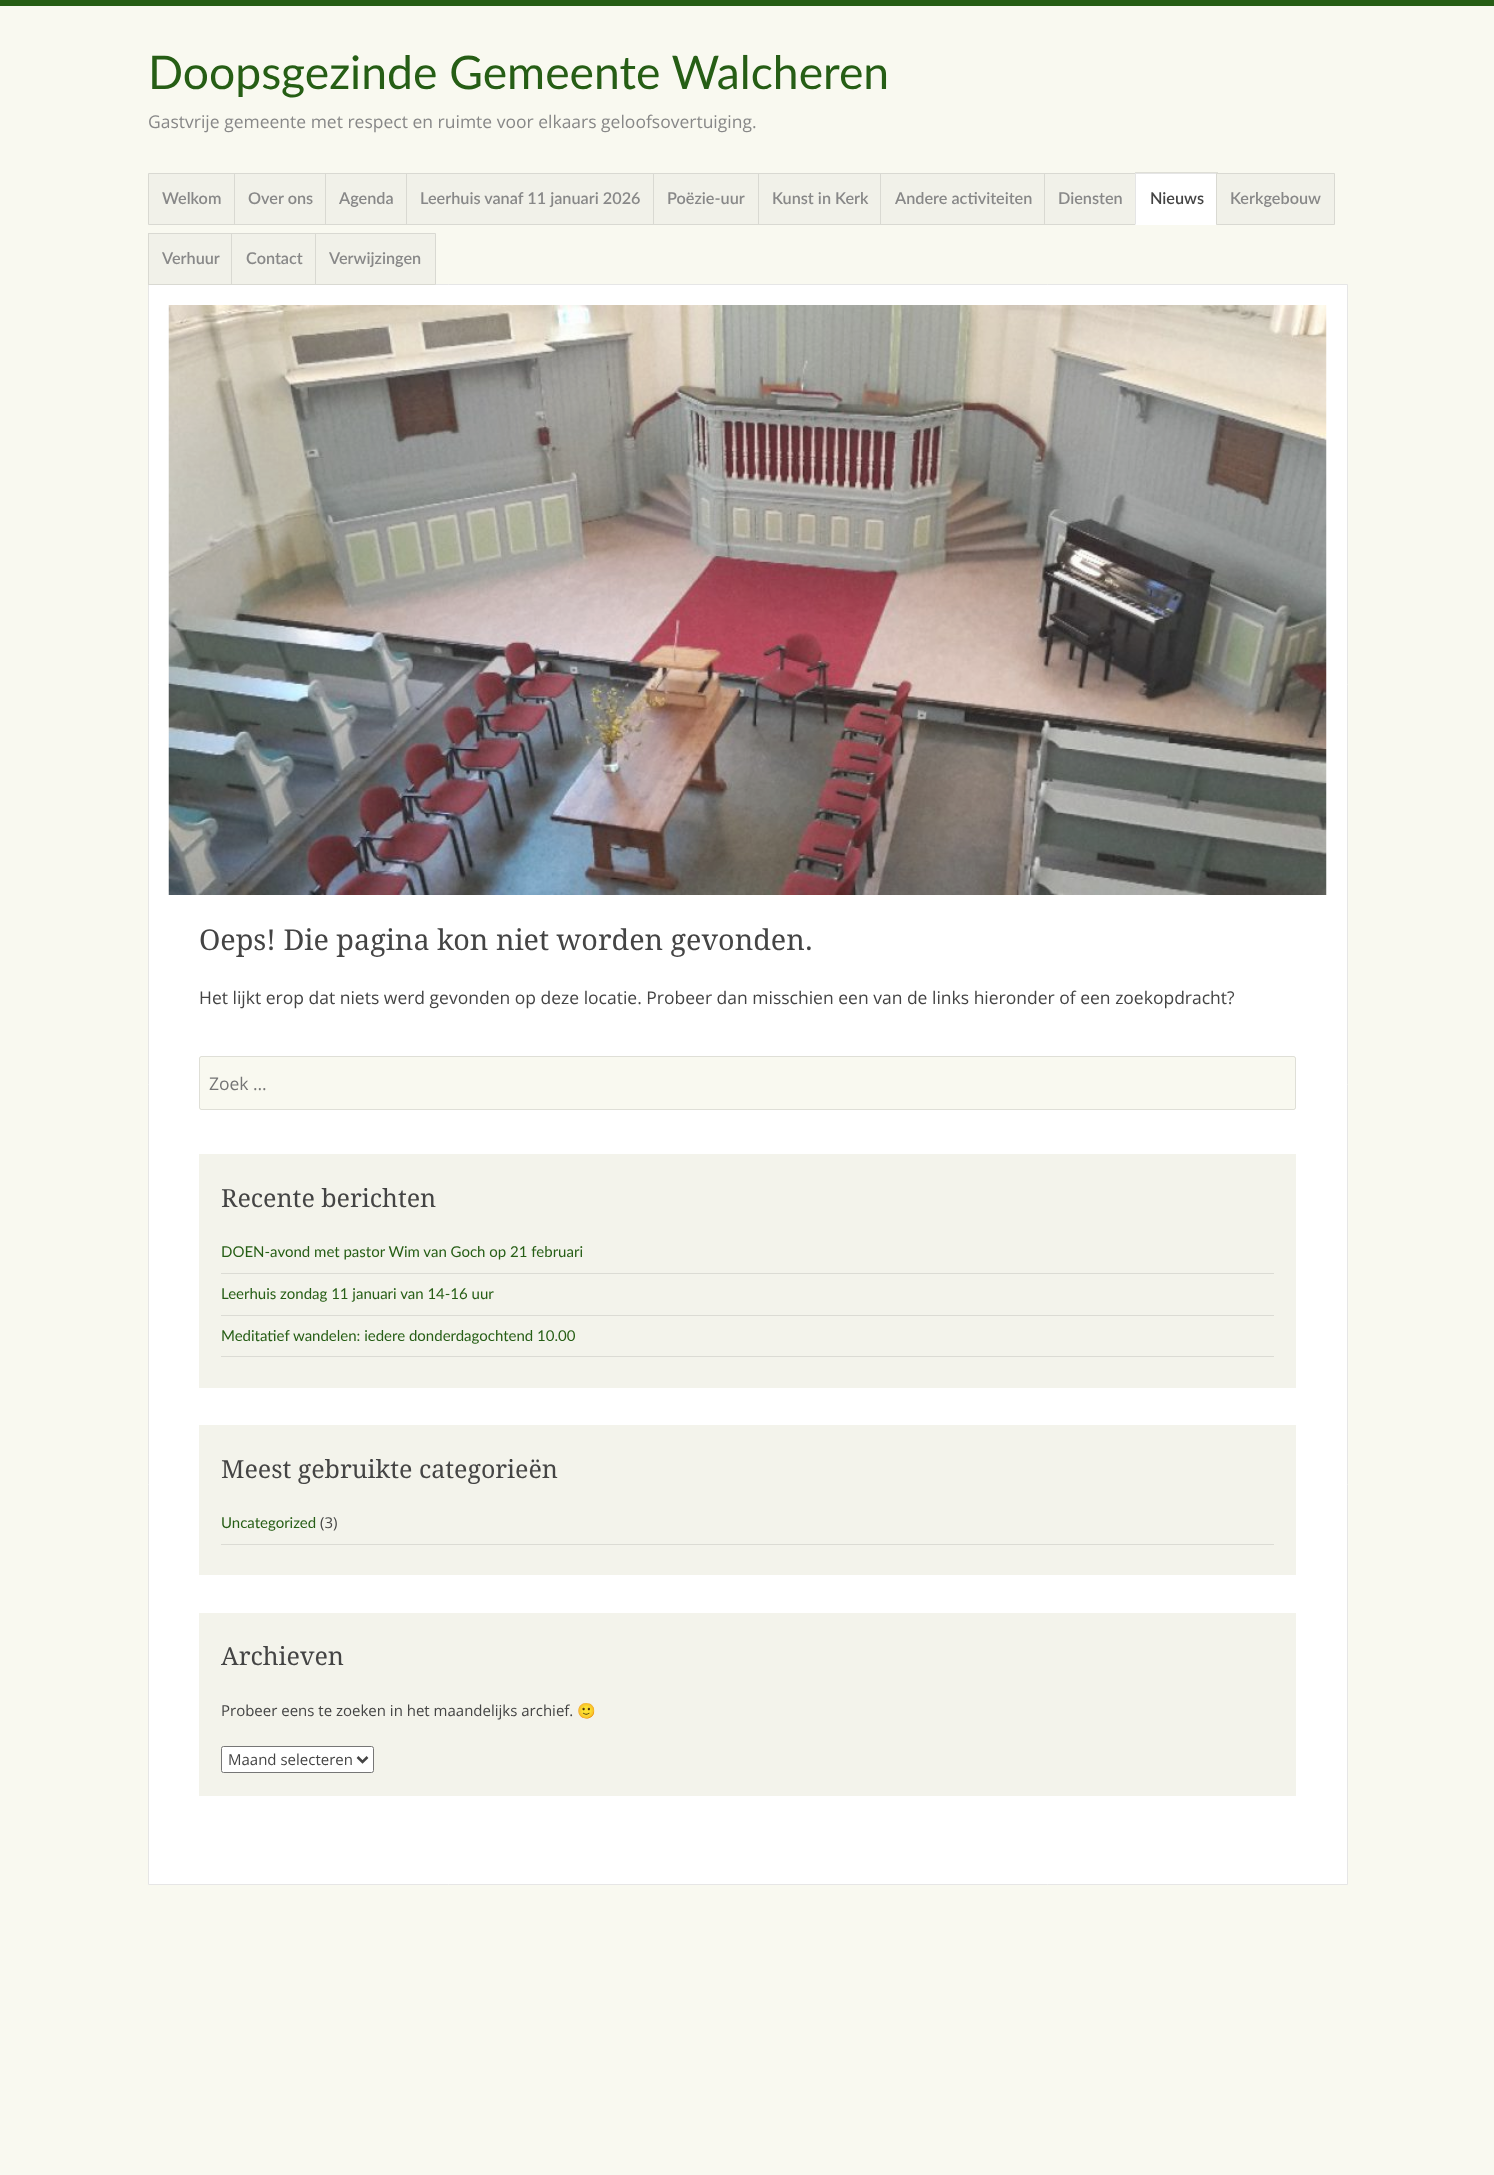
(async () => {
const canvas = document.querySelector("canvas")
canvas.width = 1494
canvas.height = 2175
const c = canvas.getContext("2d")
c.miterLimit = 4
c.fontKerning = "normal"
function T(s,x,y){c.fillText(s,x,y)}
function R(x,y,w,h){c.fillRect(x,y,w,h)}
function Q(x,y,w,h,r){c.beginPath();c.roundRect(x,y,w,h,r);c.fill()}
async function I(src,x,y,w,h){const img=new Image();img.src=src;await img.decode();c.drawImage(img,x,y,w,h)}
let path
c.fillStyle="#f9f9f0"
R(0,0,1494,2175)
c.fillStyle="#265e15"
R(0,0,1494,6)
c.font="46.25px Lato"
T("Doopsgezinde Gemeente Walcheren",148,89)
c.font="17.5px Open Sans"
c.fillStyle="#888"
T("Gastvrije gemeente met respect en ruimte voor elkaars geloofsovertuiging.",148,128)
c.fillStyle="#f1f1e9"
c.beginPath()
c.rect(148.5,173.5,86,51)
c.fill()
c.strokeStyle="#d9d9d2"
c.stroke()
c.font="600 16.25px Lato"
c.fillStyle="#888"
T("Welkom",162,204)
c.fillStyle="#f1f1e9"
R(235,174,90,50)
c.strokeRect(234.5,173.5,93,51)
c.fillStyle="#888"
T("Over ons",248,204)
c.fillStyle="#f1f1e9"
R(326,174,80,50)
c.strokeRect(325.5,173.5,82,51)
c.fillStyle="#888"
T("Agenda",339,204)
c.fillStyle="#f1f1e9"
R(407,174,246,50)
c.strokeRect(406.5,173.5,248,51)
c.fillStyle="#888"
T("Leerhuis vanaf 11 januari 2026",420,204)
c.fillStyle="#f1f1e9"
c.beginPath()
c.rect(653.5,173.5,105,51)
c.fill()
c.stroke()
c.fillStyle="#888"
T("Poëzie-uur",667,204)
c.fillStyle="#f1f1e9"
R(759,174,121,50)
c.strokeRect(758.5,173.5,124,51)
c.fillStyle="#888"
T("Kunst in Kerk",772,204)
c.fillStyle="#f1f1e9"
R(881,174,163,50)
c.strokeRect(880.5,173.5,165,51)
c.fillStyle="#888"
T("Andere activiteiten",895,204)
c.fillStyle="#f1f1e9"
R(1045,174,90,50)
c.strokeRect(1044.5,173.5,93,51)
c.fillStyle="#888"
T("Diensten",1058,204)
c.fillStyle="#fff"
R(1135,173,81,52)
c.fillStyle="#0000001a"
path = new Path2D("M1135 172h83l-2 2h-80z")
c.fill(path)
path = new Path2D("M1218 172v53l-2-1v-50z")
c.fill(path)
c.fillStyle="#fff"
path = new Path2D("M1218 225h-83l1-1h80z")
c.fill(path)
c.fillStyle="#0000001a"
path = new Path2D("M1135 225v-53l1 2v50z")
c.fill(path)
c.fillStyle="#444"
T("Nieuws",1150,204)
c.fillStyle="#f1f1e9"
c.beginPath()
c.rect(1216.5,173.5,118,51)
c.fill()
c.stroke()
c.fillStyle="#888"
T("Kerkgebouw",1230,204)
c.fillStyle="#f1f1e9"
R(149,234,82,50)
c.fillStyle="#fff"
c.beginPath()
c.rect(148.5,284.5,1199,1600)
c.fill()
c.strokeStyle="#e6e6e6"
c.stroke()
c.strokeStyle="#d9d9d2"
c.strokeRect(148.5,233.5,85,51)
c.fillStyle="#888"
T("Verhuur",162,264)
c.fillStyle="#f1f1e9"
R(232,234,83,50)
c.strokeRect(231.5,233.5,86,51)
c.fillStyle="#888"
T("Contact",246,264)
c.fillStyle="#f1f1e9"
c.beginPath()
c.rect(315.5,233.5,120,51)
c.fill()
c.stroke()
c.fillStyle="#888"
T("Verwijzingen",329,264)
await I("1.png",168,305,1159,590)
c.font="28.75px Droid Serif"
c.fillStyle="#444"
T("Oeps! Die pagina kon niet worden gevonden.",199,950)
c.font="17.5px Open Sans"
T("Het lijkt erop dat niets werd gevonden op deze locatie. Probeer dan misschien een van de links hieronder of een zoekopdracht?",199,1004)
c.fillStyle="#f9f9f0"
Q(199,1056,1097,54,2.5)
c.beginPath()
c.roundRect(199.5,1056.5,1096,53,2)
c.strokeStyle="#0000001a"
c.stroke()
c.fillStyle="#757575"
T("Zoek …",209,1090)
c.fillStyle="#f3f3eb"
R(199,1154,1097,234)
c.font="25px Droid Serif"
c.fillStyle="#444"
T("Recente berichten",221,1207)
c.fillStyle="#dbdbd4"
R(221,1273,1053,1)
c.font="15px Lato"
c.fillStyle="#265e15"
T("DOEN-avond met pastor Wim van Goch op 21 februari",221,1257)
c.fillStyle="#dbdbd4"
R(221,1315,1053,1)
c.fillStyle="#265e15"
T("Leerhuis zondag 11 januari van 14-16 uur",221,1299)
c.fillStyle="#dbdbd4"
R(221,1356,1053,1)
c.fillStyle="#265e15"
T("Meditatief wandelen: iedere donderdagochtend 10.00",221,1341)
c.fillStyle="#f3f3eb"
R(199,1425,1097,150)
c.font="25px Droid Serif"
c.fillStyle="#444"
T("Meest gebruikte categorieën",221,1478)
c.fillStyle="#dbdbd4"
R(221,1544,1053,1)
c.font="15px Lato"
c.fillStyle="#265e15"
T("Uncategorized",221,1528)
c.font="15px Open Sans"
c.fillStyle="#444"
T("(3)",320,1528)
c.fillStyle="#f3f3eb"
R(199,1613,1097,183)
c.font="25px Droid Serif"
c.fillStyle="#444"
T("Archieven",221,1665)
c.font="15px Open Sans"
T("Probeer eens te zoeken in het maandelijks archief.",221,1716)
c.font="15px Noto Color Emoji"
T("🙂",577,1716)
c.fillStyle="#fff"
c.beginPath()
c.roundRect(221.5,1746.5,152,26,2)
c.fill()
c.strokeStyle="#767676"
c.stroke()
path = new Path2D("M357.5 1757l5 5l5-5")
c.strokeStyle="#444"
c.lineWidth=2.5
c.stroke(path)
c.font="15px Open Sans"
c.fillStyle="#444"
T("Maand selecteren",228,1765)
})()
